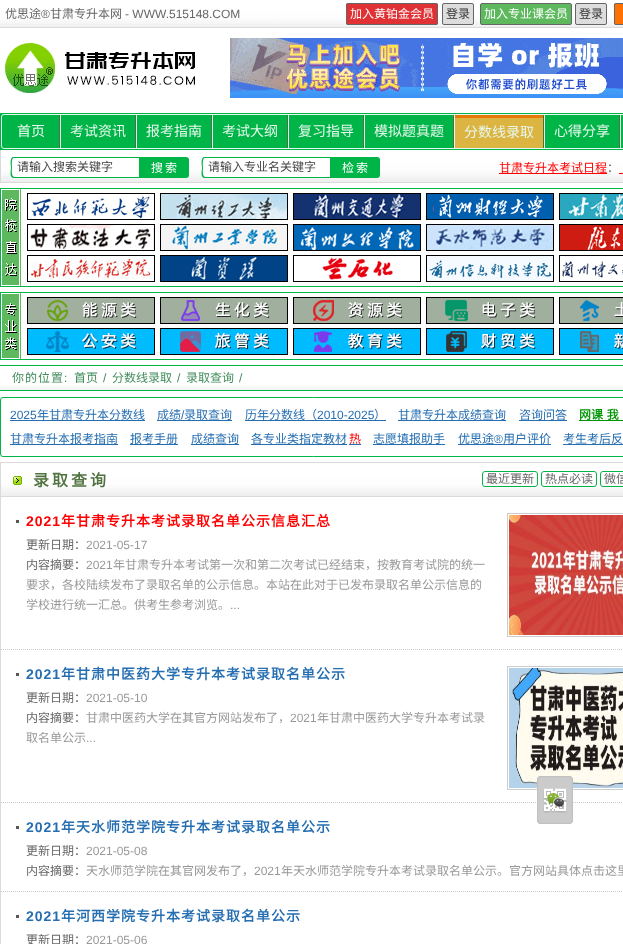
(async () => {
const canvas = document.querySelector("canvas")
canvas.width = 623
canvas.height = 944
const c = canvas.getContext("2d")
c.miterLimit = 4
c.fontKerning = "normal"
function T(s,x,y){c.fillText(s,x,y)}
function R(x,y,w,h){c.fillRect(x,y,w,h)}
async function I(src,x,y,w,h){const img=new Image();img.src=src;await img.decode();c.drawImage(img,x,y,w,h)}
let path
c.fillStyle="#fff"
R(0,0,623,944)
await I("1.png",0,0,623,27)
c.fillStyle="#dbdbdb"
R(0,27,623,1)
c.font="12px Noto Sans CJK SC"
c.fillStyle="#676767"
T("优思途",5,18)
c.font="12px Liberation Sans"
T("®",41,18)
c.font="12px Noto Sans CJK SC"
T("甘肃专升本网",50,18)
c.font="12px Liberation Sans"
T("- WWW.515148.COM",125,18)
c.fillStyle="#ff7100"
c.beginPath()
c.roundRect(614,3,9,22,[2,0,0,2])
c.fill()
c.fillStyle="#e03235"
c.beginPath()
c.roundRect(350,3,88,22,[0,2,2,0])
c.fill()
c.font="12px Noto Sans CJK SC"
c.fillStyle="#fff"
T("加入黄铂金会员",350,18)
c.fillStyle="#e03235"
c.beginPath()
c.roundRect(346,3,4,22,[2,0,0,2])
c.fill()
c.fillStyle="#666"
R(347,3,3,1)
R(347,24,3,1)
R(346,4,1,20)
R(350,3,87,1)
R(437,4,1,20)
R(350,24,87,1)
c.fillStyle="#ddd"
c.beginPath()
c.roundRect(442.5,3.5,31,21,1.5)
c.fill()
c.strokeStyle="#666"
c.stroke()
c.fillStyle="#333"
T("登录",446,18)
c.fillStyle="#5eb95e"
c.beginPath()
c.roundRect(480.5,3.5,91,21,1.5)
c.fill()
c.stroke()
c.fillStyle="#fff"
T("加入专业课会员",484,18)
c.fillStyle="#ddd"
c.beginPath()
c.roundRect(575.5,3.5,31,21,1.5)
c.fill()
c.stroke()
c.fillStyle="#333"
T("登录",579,18)
c.beginPath()
c.roundRect(614.5,3.5,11,21,1.5)
c.stroke()
await I("2.png",5,43,190,50)
await I("3.png",230,38,393,60)
c.fillStyle="#dadada"
R(0,182,623,1)
await I("4.png",1,150,622,32)
c.fillStyle="#00b548"
R(0,113,623,37)
c.beginPath()
c.roundRect(1.5,114.5,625,34,2.5)
c.strokeStyle="#e6f8ed"
c.stroke()
c.font="14px Noto Sans CJK SC"
c.fillStyle="#e6f8ed"
T("首页",17,136)
R(60,115,1,33)
c.fillStyle="#47733e"
R(59,115,1,33)
c.fillStyle="#e6f8ed"
T("考试资讯",70,136)
R(136,115,1,33)
c.fillStyle="#47733e"
R(135,115,1,33)
c.fillStyle="#e6f8ed"
T("报考指南",146,136)
R(212,115,1,33)
c.fillStyle="#47733e"
R(211,115,1,33)
c.fillStyle="#e6f8ed"
T("考试大纲",222,136)
R(288,115,1,33)
c.fillStyle="#47733e"
R(287,115,1,33)
c.fillStyle="#e6f8ed"
T("复习指导",298,136)
R(364,115,1,33)
c.fillStyle="#47733e"
R(363,115,1,33)
c.fillStyle="#e6f8ed"
T("模拟题真题",374,136)
R(454,115,1,33)
c.fillStyle="#47733e"
R(453,115,1,33)
c.fillStyle="#dcb441"
R(455,118,88,30)
c.fillStyle="#e67807"
R(455,115,88,3)
c.fillStyle="#e6f8ed"
T("分数线录取",464,137)
R(544,115,1,33)
c.fillStyle="#47733e"
R(543,115,1,33)
c.fillStyle="#e6f8ed"
T("心得分享",554,136)
R(620,115,1,33)
c.fillStyle="#47733e"
R(619,115,1,33)
c.fillStyle="#dadada"
R(0,150,1,32)
c.fillStyle="#fff"
c.beginPath()
c.roundRect(11,157,128,21,[3,0,0,3])
c.fill()
c.fillStyle="#00b548"
path = new Path2D("M14 157h125v21h-126c-4-1-2-8-2-10c0-3-2-11 3-11zm0 1h125v19h-125c-3-1-2-8-2-9c0-2-1-10 2-10z")
c.fill(path,"evenodd")
c.font="12px Noto Sans CJK SC"
c.fillStyle="#444"
T("请输入搜索关键字",17,171)
c.fillStyle="#00b548"
c.beginPath()
c.roundRect(139,157,50,21,[0,3,3,0])
c.fill()
c.letterSpacing="2px"
c.fillStyle="#fff"
T("搜索",151,172)
c.beginPath()
c.roundRect(202,157,128,21,[3,0,0,3])
c.fill()
c.fillStyle="#00b548"
path = new Path2D("M205 157h125v21h-126c-4-1-2-8-2-10c0-3-2-11 3-11zm0 1h125v19h-125c-3-1-2-8-2-9c0-2-1-10 2-10z")
c.fill(path,"evenodd")
c.letterSpacing="0px"
c.fillStyle="#444"
T("请输入专业名关键字",208,171)
c.fillStyle="#00b548"
c.beginPath()
c.roundRect(330,157,50,21,[0,3,3,0])
c.fill()
c.letterSpacing="2px"
c.fillStyle="#fff"
T("检索",342,172)
c.letterSpacing="0px"
c.fillStyle="#f00"
T("甘肃专升本考试日程",499,172)
R(499,173,108,1)
c.fillStyle="#676767"
T("：",607,172)
c.fillStyle="#f00"
R(619,173,4,1)
await I("5.png",2,189,19,97)
c.strokeStyle="#00b548"
c.strokeRect(.5,188.5,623,98)
await I("6.png",27,193,128,27)
await I("7.png",160,193,128,27)
await I("8.png",293,193,128,27)
await I("9.png",426,193,128,27)
await I("10.png",559,193,64,27)
await I("11.png",27,224,128,27)
await I("12.png",160,224,128,27)
await I("13.png",293,224,128,27)
await I("14.png",426,224,128,27)
await I("15.png",559,224,64,27)
await I("16.png",27,255,128,27)
await I("17.png",160,255,128,27)
await I("18.png",293,255,128,27)
await I("19.png",426,255,128,27)
await I("20.png",559,255,64,27)
await I("21.png",2,293,19,66)
c.strokeRect(.5,292.5,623,67)
await I("22.png",27,297,128,27)
await I("23.png",160,297,128,27)
await I("24.png",293,297,128,27)
await I("25.png",426,297,128,27)
await I("26.png",559,297,64,27)
await I("27.png",27,328,128,27)
await I("28.png",160,328,128,27)
await I("29.png",293,328,128,27)
await I("30.png",426,328,128,27)
await I("31.png",559,328,64,27)
await I("32.png",0,385,623,5)
c.fillStyle="#00b548"
R(0,365,623,1)
R(0,390,623,1)
c.letterSpacing="1px"
c.fillStyle="#428c5b"
T("你的位置",12,382)
c.font="12px Liberation Sans"
T(":",64,382)
c.letterSpacing="0px"
c.font="12px Noto Sans CJK SC"
T("首页",74,382)
c.font="12px Liberation Sans"
T("/",103,382)
c.font="12px Noto Sans CJK SC"
T("分数线录取",112,382)
c.font="12px Liberation Sans"
T("/",177,382)
c.font="12px Noto Sans CJK SC"
T("录取查询",186,382)
c.font="12px Liberation Sans"
T("/",239,382)
c.beginPath()
c.roundRect(.5,397.5,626,59,2.5)
c.stroke()
c.fillStyle="#256eb1"
T("2025",10,419)
R(10,420,135,1)
c.font="12px Noto Sans CJK SC"
T("年甘肃专升本分数线",37,419)
T("成绩",157,419)
c.font="12px Liberation Sans"
T("/",181,419)
R(157,420,75,1)
c.font="12px Noto Sans CJK SC"
T("录取查询",184,419)
R(245,420,141,1)
T("历年分数线（",245,419)
c.font="12px Liberation Sans"
T("2010-2025",317,419)
c.font="12px Noto Sans CJK SC"
T("）",374,419)
T("甘肃专升本成绩查询",398,419)
R(398,420,108,1)
R(519,420,48,1)
T("咨询问答",519,419)
c.wordSpacing="1px"
c.font="bold 12px Noto Sans CJK SC"
c.fillStyle="#009706"
T("网课 我",579,419)
R(579,420,44,1)
c.wordSpacing="0px"
c.font="12px Noto Sans CJK SC"
c.fillStyle="#256eb1"
T("甘肃专升本报考指南",10,443)
R(10,444,108,1)
T("报考手册",130,443)
R(130,444,48,1)
T("成绩查询",191,443)
R(191,444,48,1)
T("各专业类指定教材",251,443)
R(251,444,96,1)
c.fillStyle="#f00"
T("热",349,443)
c.fillStyle="#256eb1"
R(349,444,12,1)
T("志愿填报助手",373,443)
R(373,444,72,1)
T("优思途",458,443)
c.font="12px Liberation Sans"
T("®",494,443)
R(458,444,93,1)
c.font="12px Noto Sans CJK SC"
T("用户评价",503,443)
T("考生考后反",563,443)
R(563,444,60,1)
await I("33.png",1,463,622,33)
c.fillStyle="#dadada"
R(0,462,623,1)
R(0,462,1,34)
await I("34.png",13,476,9,9)
c.letterSpacing="3px"
c.font="bold 16px Noto Sans CJK SC"
c.fillStyle="#507340"
T("录取查询",33,486)
c.beginPath()
c.roundRect(482.5,471.5,55,15,2.5)
c.stroke()
c.letterSpacing="0px"
c.font="12px Noto Sans CJK SC"
c.fillStyle="#676767"
T("最近更新",486,483)
c.beginPath()
c.roundRect(541.5,471.5,55,15,2.5)
c.stroke()
T("热点必读",545,483)
c.beginPath()
c.roundRect(600.5,471.5,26,15,2.5)
c.stroke()
T("微信",604,483)
c.strokeStyle="#dadada"
c.strokeRect(.5,496.5,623,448)
path = new Path2D("M1 649.5h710")
c.strokeStyle="#ccc"
c.setLineDash([1,1])
c.stroke(path)
c.letterSpacing="1px"
c.font="bold 14px Liberation Sans"
c.fillStyle="#f00"
T("2021",26,526)
c.fillStyle="#585858"
R(16,520,3,3)
c.font="bold 14px Noto Sans CJK SC"
c.fillStyle="#f00"
T("年甘肃专升本考试录取名单公示信息汇总",61,526)
c.letterSpacing="0px"
c.font="12px Noto Sans CJK SC"
c.fillStyle="#676767"
T("更新日期：",26,549)
c.font="12px Liberation Sans"
c.fillStyle="#999"
T("2021-05-17",86,549)
c.font="12px Noto Sans CJK SC"
c.fillStyle="#676767"
T("内容摘要：",26,569)
c.font="12px Liberation Sans"
c.fillStyle="#999"
T("2021",86,569)
c.font="12px Noto Sans CJK SC"
T("年甘肃专升本考试第一次和第二次考试已经结束，按教育考试院的统一",113,569)
T("要求，各校陆续发布了录取名单的公示信息。本站在此对于已发布录取名单公示信息的",26,589)
T("学校进行统一汇总。供考生参考浏览。",26,609)
c.font="12px Liberation Sans"
T("...",230,609)
c.setLineDash([])
c.strokeRect(507.5,513.5,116,123)
await I("35.png",509,515,114,120)
path = new Path2D("M1 802.5h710")
c.setLineDash([1,1])
c.stroke(path)
c.letterSpacing="1px"
c.font="bold 14px Liberation Sans"
c.fillStyle="#256eb1"
T("2021",26,679)
c.fillStyle="#585858"
R(16,673,3,3)
c.font="bold 14px Noto Sans CJK SC"
c.fillStyle="#256eb1"
T("年甘肃中医药大学专升本考试录取名单公示",61,679)
c.letterSpacing="0px"
c.font="12px Noto Sans CJK SC"
c.fillStyle="#676767"
T("更新日期：",26,702)
c.font="12px Liberation Sans"
c.fillStyle="#999"
T("2021-05-10",86,702)
c.font="12px Noto Sans CJK SC"
c.fillStyle="#676767"
T("内容摘要：",26,722)
c.fillStyle="#999"
T("甘肃中医药大学在其官方网站发布了，",86,722)
c.font="12px Liberation Sans"
T("2021",290,722)
c.font="12px Noto Sans CJK SC"
T("年甘肃中医药大学专升本考试录",317,722)
T("取名单公示",26,742)
c.font="12px Liberation Sans"
T("...",86,742)
c.setLineDash([])
c.strokeRect(507.5,666.5,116,123)
await I("36.png",509,668,114,120)
path = new Path2D("M1 891.5h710")
c.setLineDash([1,1])
c.stroke(path)
c.letterSpacing="1px"
c.font="bold 14px Liberation Sans"
c.fillStyle="#256eb1"
T("2021",26,832)
c.fillStyle="#585858"
R(16,826,3,3)
c.font="bold 14px Noto Sans CJK SC"
c.fillStyle="#256eb1"
T("年天水师范学院专升本考试录取名单公示",61,832)
c.letterSpacing="0px"
c.font="12px Noto Sans CJK SC"
c.fillStyle="#676767"
T("更新日期：",26,855)
c.font="12px Liberation Sans"
c.fillStyle="#999"
T("2021-05-08",86,855)
c.font="12px Noto Sans CJK SC"
c.fillStyle="#676767"
T("内容摘要：",26,875)
c.fillStyle="#999"
T("天水师范学院在其官网发布了，",86,875)
c.font="12px Liberation Sans"
T("2021",254,875)
c.font="12px Noto Sans CJK SC"
T("年天水师范学院专升本考试录取名单公示。官方网站具体点击这里",281,875)
c.letterSpacing="1px"
c.font="bold 14px Liberation Sans"
c.fillStyle="#256eb1"
T("2021",26,921)
c.fillStyle="#585858"
R(16,915,3,3)
c.font="bold 14px Noto Sans CJK SC"
c.fillStyle="#256eb1"
T("年河西学院专升本考试录取名单公示",61,921)
c.letterSpacing="0px"
c.font="12px Noto Sans CJK SC"
c.fillStyle="#676767"
T("更新日期：",26,944)
c.font="12px Liberation Sans"
c.fillStyle="#999"
T("2021-05-06",86,944)
await I("37.png",537,776,36,48)
})()
